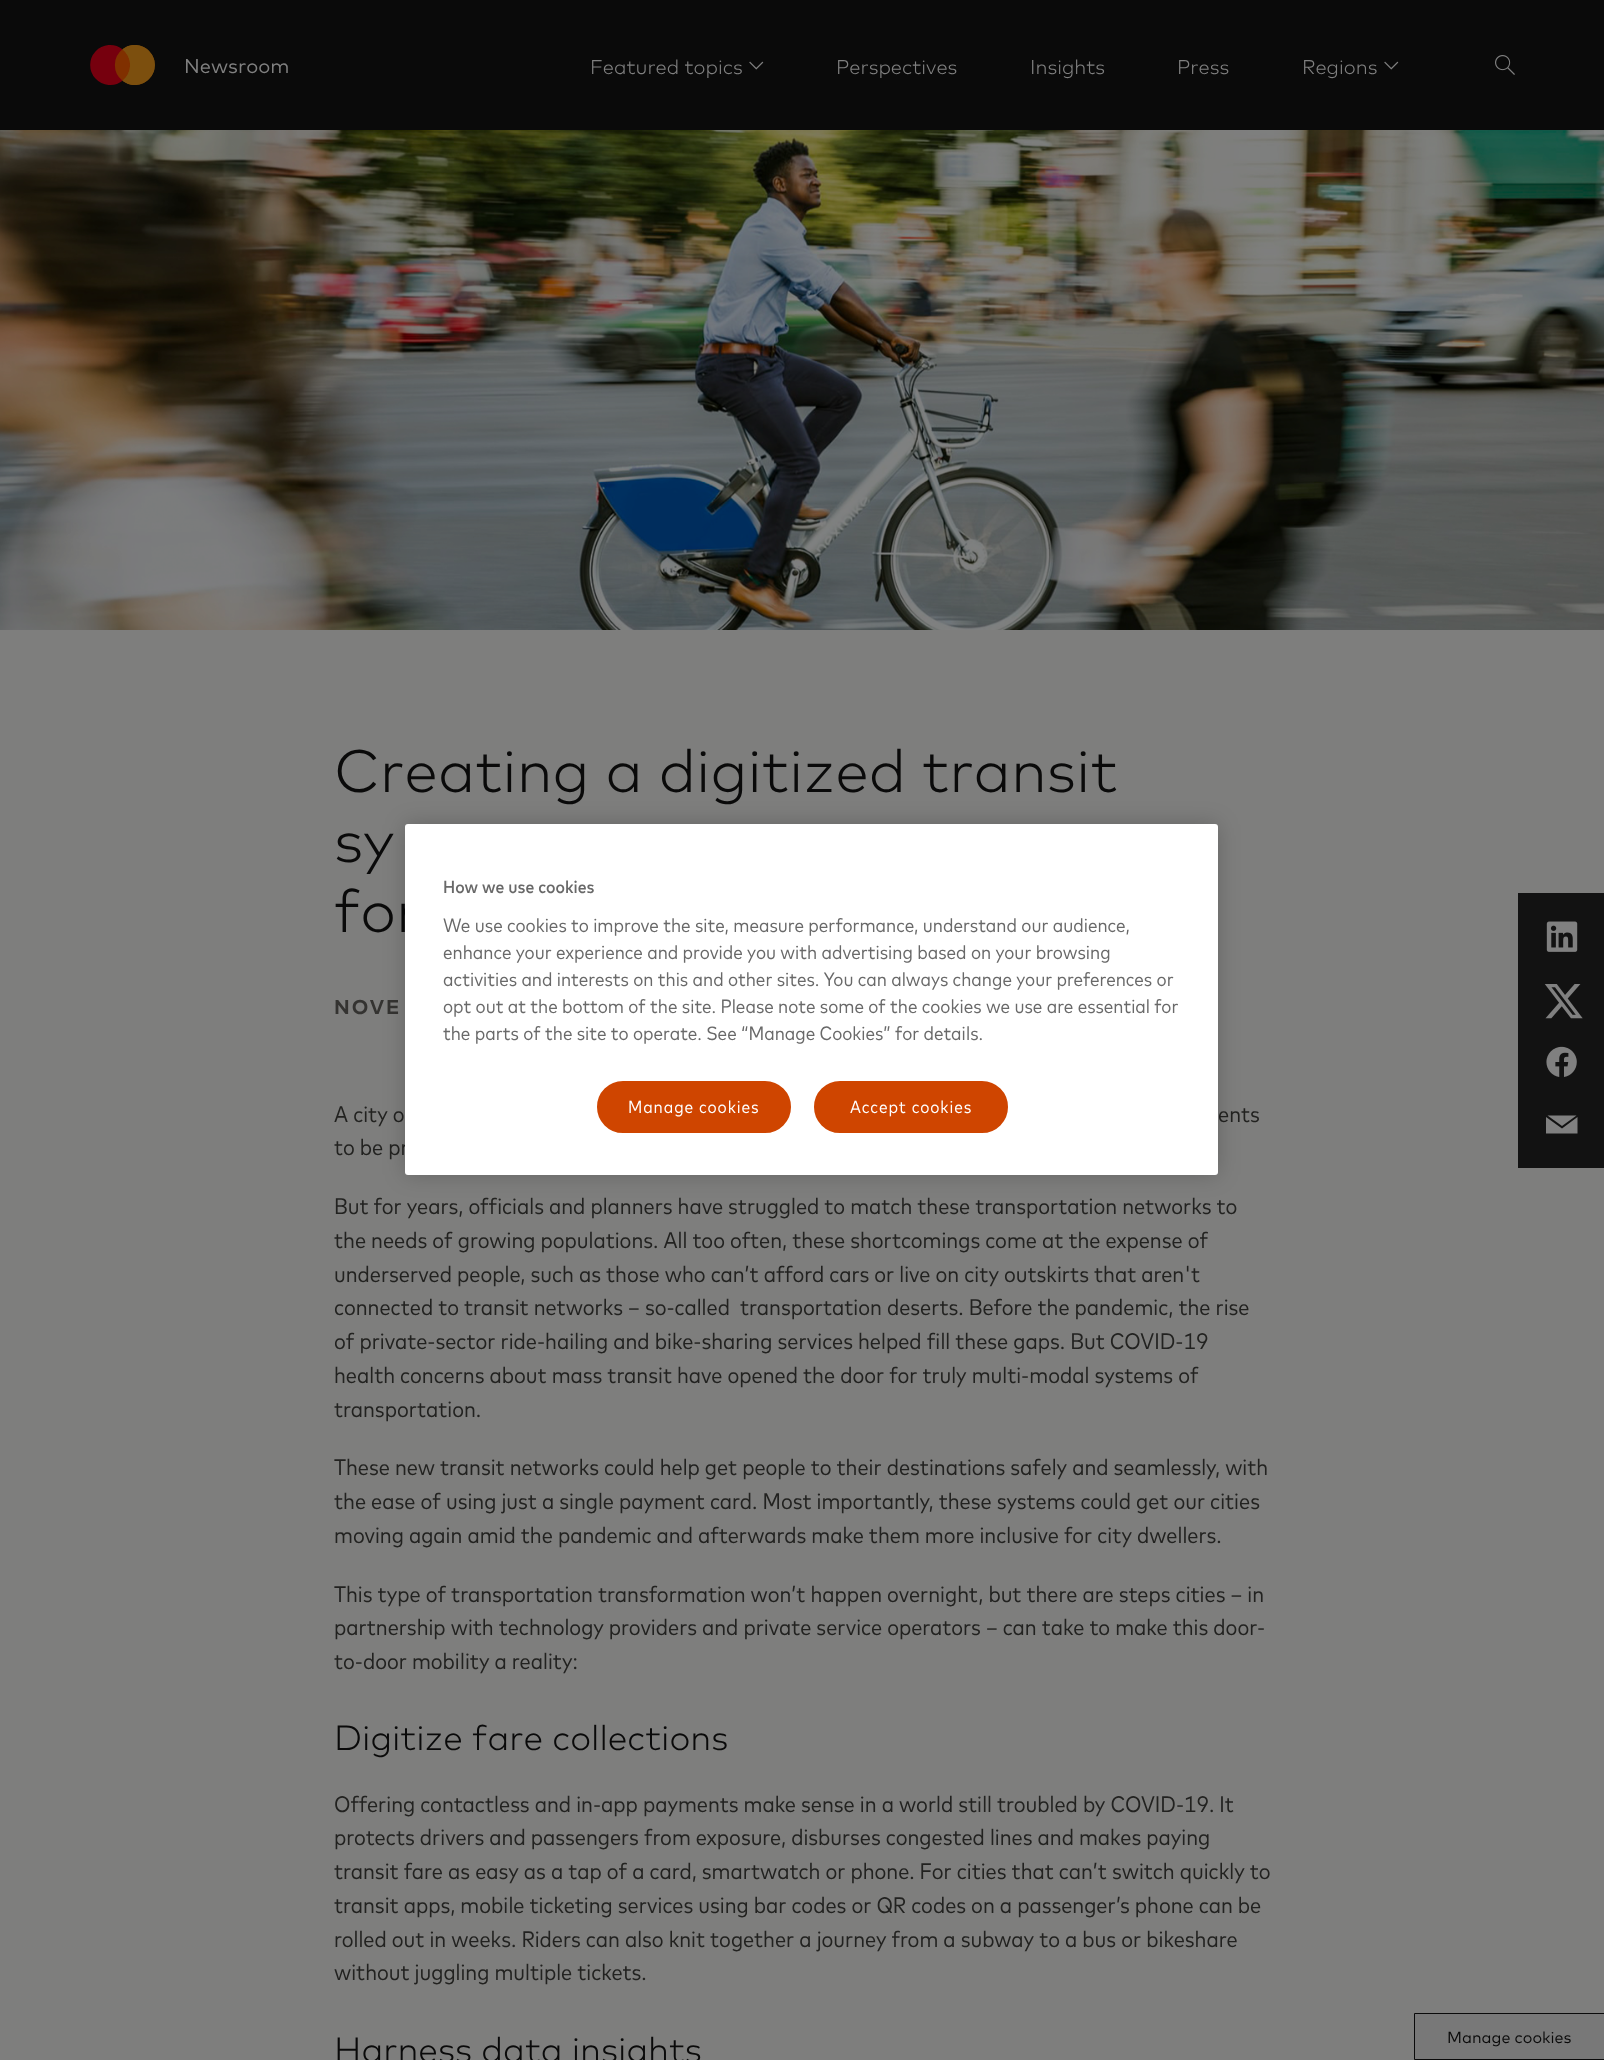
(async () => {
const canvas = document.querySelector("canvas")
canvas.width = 1604
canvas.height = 2060
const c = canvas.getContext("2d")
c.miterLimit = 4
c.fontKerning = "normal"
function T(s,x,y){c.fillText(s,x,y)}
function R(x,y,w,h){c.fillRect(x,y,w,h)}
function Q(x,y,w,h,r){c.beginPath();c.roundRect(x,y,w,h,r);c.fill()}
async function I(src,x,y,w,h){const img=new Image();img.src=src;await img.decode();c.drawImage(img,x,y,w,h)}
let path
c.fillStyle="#7e7e7d"
R(0,0,1604,2060)
c.fillStyle="#0a0a0a"
R(0,0,1604,130)
await I("1.png",90,45,65,40)
c.font="20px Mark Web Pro"
c.fillStyle="#808080"
T("Newsroom",184,73)
await I("2.png",749,61,15,9)
c.font="300 20px Mark Web Pro"
T("Featured topics",590,74)
T("Perspectives",836,74)
T("Insights",1030,74)
T("Press",1177,74)
await I("2.png",1384,61,15,9)
T("Regions",1302,74)
await I("3.png",1495,55,20,20)
await I("4.png",0,130,1604,500)
c.font="300 60px Mark Web Pro"
c.fillStyle="#0a0a0a"
T("Creating a digitized transit",334,792)
T("sy",334,862)
T("for",334,932)
c.letterSpacing="2px"
c.font="bold 20px Mark Web Pro"
c.fillStyle="#343331"
T("NOVE",334,1014)
c.letterSpacing="0px"
c.font="22.5px 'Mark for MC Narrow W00'"
c.fillStyle="#222220"
T("A city o",334,1122)
T("ents",1218,1122)
T("to be pr",334,1155)
T("But for years, officials and planners have struggled to match these transportation networks to",334,1214)
T("the needs of growing populations. All too often, these shortcomings come at the expense of",334,1248)
T("underserved people, such as those who can’t afford cars or live on city outskirts that aren't",334,1282)
T("connected to transit networks – so-called  transportation deserts. Before the pandemic, the rise",334,1315)
T("of private-sector ride-hailing and bike-sharing services helped fill these gaps. But COVID-19",334,1349)
T("health concerns about mass transit have opened the door for truly multi-modal systems of",334,1383)
T("transportation.",334,1417)
T("These new transit networks could help get people to their destinations safely and seamlessly, with",334,1475)
T("the ease of using just a single payment card. Most importantly, these systems could get our cities",334,1509)
T("moving again amid the pandemic and afterwards make them more inclusive for city dwellers.",334,1543)
T("This type of transportation transformation won’t happen overnight, but there are steps cities – in",334,1602)
T("partnership with technology providers and private service operators – can take to make this door-",334,1635)
T("to-door mobility a reality:",334,1669)
c.font="300 35px Mark Web Pro"
c.fillStyle="#0a0a0a"
T("Digitize fare collections",334,1750)
c.font="22.5px 'Mark for MC Narrow W00'"
c.fillStyle="#222220"
T("Offering contactless and in-app payments make sense in a world still troubled by COVID-19. It",334,1812)
T("protects drivers and passengers from exposure, disburses congested lines and makes paying",334,1845)
T("transit fare as easy as a tap of a card, smartwatch or phone. For cities that can’t switch quickly to",334,1879)
T("transit apps, mobile ticketing services using bar codes or QR codes on a passenger’s phone can be",334,1913)
T("rolled out in weeks. Riders can also knit together a journey from a subway to a bus or bikeshare",334,1947)
T("without juggling multiple tickets.",334,1980)
c.font="300 35px Mark Web Pro"
c.fillStyle="#0a0a0a"
T("Harness data insights",334,2062)
c.fillStyle="#121212"
R(1518,893,86,275)
await I("5.png",1546,921,32,31)
await I("6.png",1544,984,39,35)
await I("7.png",1546,1046,31,31)
c.fillStyle="#808080"
path = new Path2D("M1562 1126l14.5-10.5h-29z")
c.fill(path)
path = new Path2D("M1546 1117v16.5h31.5v-16.5l-15.5 11.5z")
c.fill(path)
c.fillStyle="#787878"
c.beginPath()
c.rect(1414.5,2013.5,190,46)
c.fill()
c.strokeStyle="#0a0a0a"
c.stroke()
c.font="16px Mark Web Pro"
c.fillStyle="#0a0a0a"
T("Manage cookies",1447,2043)
c.fillStyle="#00000033"
c.filter="blur(11px)"
c.beginPath()
c.roundRect(405,824,813,351,3)
c.fill()
c.filter="none"
c.fillStyle="#fff"
Q(405,824,813,351,3)
c.font="500 17.5px 'Mark for MC Narrow W00'"
c.fillStyle="#696969"
T("How we use cookies",443,893)
c.font="19.25px 'Mark for MC Narrow W00'"
T("We use cookies to improve the site, measure performance, understand our audience,",443,932)
T("enhance your experience and provide you with advertising based on your browsing",443,959)
T("activities and interests on this and other sites. You can always change your preferences or",443,986)
T("opt out at the bottom of the site. Please note some of the cookies we use are essential for",443,1013)
T("the parts of the site to operate. See “Manage Cookies” for details.",443,1040)
c.fillStyle="#cf4500"
c.beginPath()
c.roundRect(595.5,1079.5,197,55,27.5)
c.fill()
c.strokeStyle="#fff"
c.lineWidth=3
c.stroke()
c.letterSpacing="0.9px"
c.font="17.5px 'Mark for MC Narrow W00'"
c.fillStyle="#fff"
T("Manage cookies",628,1113)
c.fillStyle="#cf4500"
c.beginPath()
c.roundRect(812.5,1079.5,197,55,27.5)
c.fill()
c.stroke()
c.fillStyle="#fff"
T("Accept cookies",850,1113)
})()
